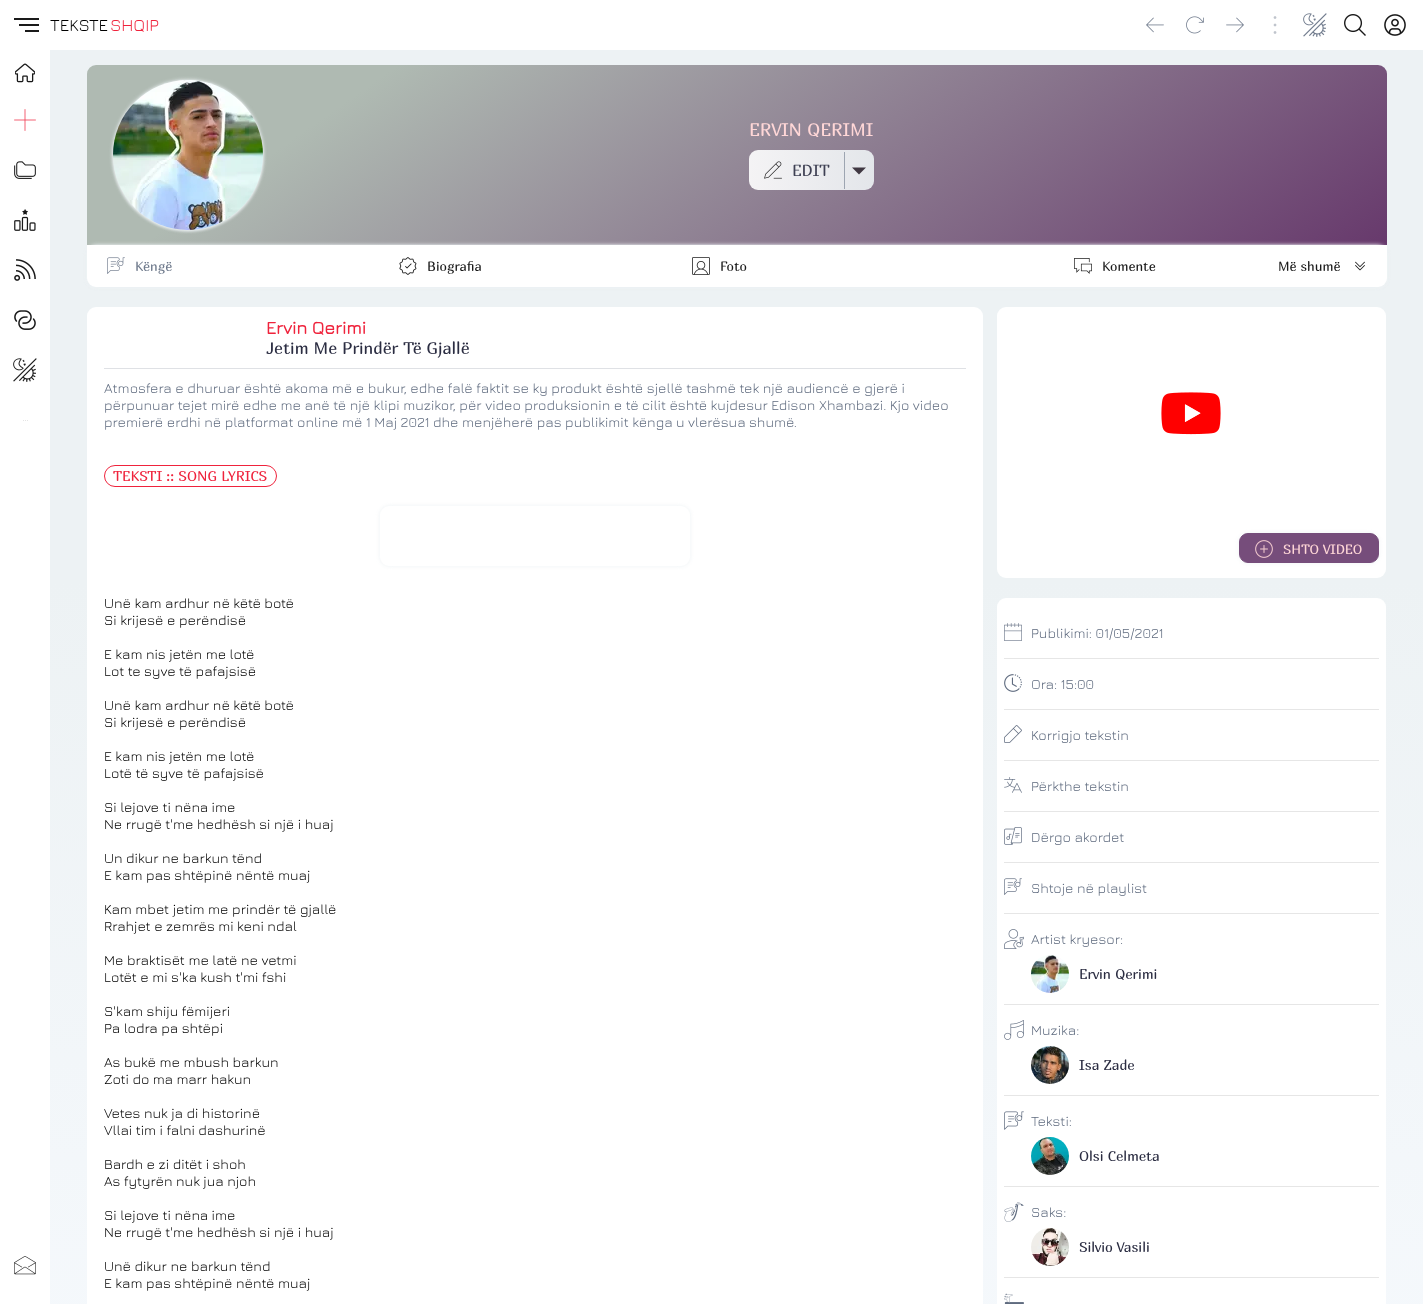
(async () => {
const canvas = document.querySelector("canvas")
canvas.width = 1423
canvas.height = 1304
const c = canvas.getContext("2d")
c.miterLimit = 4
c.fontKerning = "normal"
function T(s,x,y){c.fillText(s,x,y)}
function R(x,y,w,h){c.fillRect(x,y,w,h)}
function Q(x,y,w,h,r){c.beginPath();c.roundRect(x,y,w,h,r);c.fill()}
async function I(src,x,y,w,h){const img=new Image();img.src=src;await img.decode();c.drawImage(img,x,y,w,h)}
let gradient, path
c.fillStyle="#fff"
R(0,0,1423,1304)
c.fillStyle="#1a1a1a"
R(14,18,25,2)
R(19,24,20,2)
R(25,30,14,2)
c.font="300 17px Jura"
c.fillStyle="#000"
T("TEKSTE",50,31)
c.fillStyle="#ef233c"
T("SHQIP",110,31)
await I("1.png",1146,17,18,16)
await I("2.png",1186,16,18,18)
await I("3.png",1226,17,18,16)
await I("4.png",1273,16,4,18)
await I("5.png",1303,13,24,24)
await I("6.png",1344,14,22,22)
await I("7.png",1384,14,22,22)
await I("8.png",15,63,20,20)
await I("9.png",14,109,22,22)
await I("10.png",14,161,22,18)
await I("11.png",14,209,22,22)
await I("12.png",14,259,22,22)
await I("13.png",14,310,22,20)
await I("14.png",13,358,24,24)
await I("15.png",23,420,5,1)
await I("16.png",14,1256,22,19)
gradient = c.createLinearGradient(736,50,737,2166)
gradient.addColorStop(.25,"#edf2f4")
gradient.addColorStop(.75,"#f8fbff")
gradient.addColorStop(1,"#f8fbff")
c.fillStyle = gradient
R(50,50,1373,1254)
gradient = c.createLinearGradient(481,-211,993,521)
gradient.addColorStop(.2,"#afbab2")
gradient.addColorStop(1,"#67396c")
c.fillStyle = gradient
c.beginPath()
c.roundRect(87,65,1300,180,[9,9,0,0])
c.fill()
c.fillStyle="#edf2f4"
c.filter="blur(2px)"
c.beginPath()
c.roundRect(113,80,150,150,75)
c.fill()
c.filter="none"
c.filter="blur(1.5px)"
c.beginPath()
c.roundRect(113,81,150,150,75)
c.fill()
c.filter="none"
await I("17.png",113,80,150,150)
c.font="18px Marmelad"
c.fillStyle="#ffd7d7"
T("ERVIN QERIMI",749,136)
gradient = c.createLinearGradient(749,170,874,170)
gradient.addColorStop(0,"#ffffffe6")
gradient.addColorStop(1,"#edf2f4e6")
c.fillStyle = gradient
Q(749,150,125,40,9)
await I("18.png",764,161,18,18)
c.font="16px Marmelad"
c.fillStyle="#3e4053"
T("EDIT",792,176)
c.fillStyle="#9da5b1"
R(844,152,1,37)
c.fillStyle="#403842"
path = new Path2D("M852 167.5l7 7l7-7z")
c.fill(path)
c.fillStyle="#edf2f4"
c.filter="blur(2px)"
c.beginPath()
c.roundRect(87,245,1300,42,9)
c.fill()
c.filter="none"
c.filter="blur(1.5px)"
c.beginPath()
c.roundRect(87,246,1300,42,9)
c.fill()
c.filter="none"
c.fillStyle="#fff"
c.beginPath()
c.roundRect(87,245,1300,42,[0,0,9,9])
c.fill()
await I("19.png",107,257,18,17)
c.font="13.25px Marmelad"
c.fillStyle="#6f7a8c"
T("Këngë",135,271)
await I("20.png",399,257,18,18)
c.fillStyle="#1a1a1a"
T("Biografia",427,271)
await I("21.png",692,257,18,18)
T("Foto",720,271)
await I("22.png",1074,258,18,16)
T("Komente",1102,271)
T("Më shumë",1278,271)
await I("23.png",1355,261,10,10)
c.fillStyle="#fff"
Q(87,307,896,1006,9)
c.font="bold 18px Jura"
c.fillStyle="#ef233c"
T("Ervin Qerimi",266,334)
c.font="16.75px Marmelad"
c.fillStyle="#2b2d42"
T("Jetim Me Prindër Të Gjallë",266,354)
c.fillStyle="#dfe1e5"
R(104,368,862,1)
c.font="300 14px Jura"
c.fillStyle="#5f6b7f"
T("Atmosfera e dhuruar është akoma më e bukur, edhe falë faktit se ky produkt është sjellë tashmë tek një audiencë e gjerë i",104,393)
T("përpunuar tejet mirë edhe me anë të një klipi muzikor, për video produksionin e të cilit është kujdesur Edison Xhambazi. Kjo video",104,410)
T("premierë erdhi në platformat online më 1 Maj 2021 dhe menjëherë pas publikimit kënga u vlerësua shumë.",104,427)
c.beginPath()
c.roundRect(104.5,465.5,172,21,10.5)
c.strokeStyle="#ef233c"
c.stroke()
c.font="14px Marmelad"
c.fillStyle="#ef233c"
T("TEKSTI :: SONG LYRICS",113,481)
c.fillStyle="#edf2f4"
c.filter="blur(2px)"
c.beginPath()
c.roundRect(380,506,310,60,9)
c.fill()
c.filter="none"
c.fillStyle="#fff"
Q(380,506,310,60,9)
c.font="300 14px Jura"
c.fillStyle="#000"
T("Unë kam ardhur në këtë botë",104,608)
T("Si krijesë e perëndisë",104,625)
T("E kam nis jetën me lotë",104,659)
T("Lot te syve të pafajsisë",104,676)
T("Unë kam ardhur në këtë botë",104,710)
T("Si krijesë e perëndisë",104,727)
T("E kam nis jetën me lotë",104,761)
T("Lotë të syve të pafajsisë",104,778)
T("Si lejove ti nëna ime",104,812)
T("Ne rrugë t'me hedhësh si një i huaj",104,829)
T("Un dikur ne barkun tënd",104,863)
T("E kam pas shtëpinë nëntë muaj",104,880)
T("Kam mbet jetim me prindër të gjallë",104,914)
T("Rrahjet e zemrës mi keni ndal",104,931)
T("Me braktisët me latë ne vetmi",104,965)
T("Lotët e mi s'ka kush t'mi fshi",104,982)
T("S'kam shiju fëmijeri",104,1016)
T("Pa lodra pa shtëpi",104,1033)
T("As bukë me mbush barkun",104,1067)
T("Zoti do ma marr hakun",104,1084)
T("Vetes nuk ja di historinë",104,1118)
T("Vllai tim i falni dashurinë",104,1135)
T("Bardh e zi ditët i shoh",104,1169)
T("As fytyrën nuk jua njoh",104,1186)
T("Si lejove ti nëna ime",104,1220)
T("Ne rrugë t'me hedhësh si një i huaj",104,1237)
T("Unë dikur ne barkun tënd",104,1271)
T("E kam pas shtëpinë nëntë muaj",104,1288)
c.fillStyle="#fff"
Q(997,307,389,271,9)
await I("24.png",1161,392,60,43)
c.fillStyle="#eff3f5"
c.filter="blur(2px)"
c.beginPath()
c.roundRect(1239,533,140,30,9)
c.fill()
c.filter="none"
c.fillStyle="#764d7b"
c.beginPath()
c.roundRect(1239.5,533.5,139,29,8.5)
c.fill()
c.strokeStyle="#764d7b"
c.stroke()
await I("25.png",1255,540,18,18)
c.font="13.25px Marmelad"
c.fillStyle="#ffd7d7"
T("SHTO VIDEO",1283,554)
c.fillStyle="#fff"
Q(997,598,389,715,9)
c.fillStyle="#e6e6e6"
R(1004,658,375,1)
await I("26.png",1004,623,18,18)
c.font="300 14px Jura"
c.fillStyle="#5f6b7f"
T("Publikimi: 01/05/2021",1031,638)
c.fillStyle="#e6e6e6"
R(1004,709,375,1)
await I("27.png",1004,674,18,18)
c.fillStyle="#5f6b7f"
T("Ora: 15:00",1031,689)
c.fillStyle="#e6e6e6"
R(1004,760,375,1)
await I("28.png",1004,725,18,18)
c.fillStyle="#5f6b7f"
T("Korrigjo tekstin",1031,740)
c.fillStyle="#e6e6e6"
R(1004,811,375,1)
await I("29.png",1004,777,18,16)
c.fillStyle="#5f6b7f"
T("Përkthe tekstin",1031,791)
c.fillStyle="#e6e6e6"
R(1004,862,375,1)
await I("30.png",1004,827,18,18)
c.fillStyle="#5f6b7f"
T("Dërgo akordet",1031,842)
c.fillStyle="#e6e6e6"
R(1004,913,375,1)
await I("31.png",1004,878,18,17)
c.fillStyle="#5f6b7f"
T("Shtoje në playlist",1031,893)
c.fillStyle="#e6e6e6"
R(1004,1004,375,1)
await I("32.png",1004,929,20,20)
c.fillStyle="#5f6b7f"
T("Artist kryesor:",1031,944)
await I("33.png",1031,955,38,38)
c.font="14px Marmelad"
c.fillStyle="#2b2d42"
T("Ervin Qerimi",1079,979)
c.fillStyle="#e6e6e6"
R(1004,1095,375,1)
await I("34.png",1004,1020,20,20)
c.font="300 14px Jura"
c.fillStyle="#5f6b7f"
T("Muzika:",1031,1035)
await I("35.png",1031,1046,38,38)
c.font="14px Marmelad"
c.fillStyle="#2b2d42"
T("Isa Zade",1079,1070)
c.fillStyle="#e6e6e6"
R(1004,1186,375,1)
await I("36.png",1004,1111,20,19)
c.font="300 14px Jura"
c.fillStyle="#5f6b7f"
T("Teksti:",1031,1126)
await I("37.png",1031,1137,38,38)
c.font="14px Marmelad"
c.fillStyle="#2b2d42"
T("Olsi Celmeta",1079,1161)
c.fillStyle="#e6e6e6"
R(1004,1277,375,1)
await I("38.png",1004,1202,20,20)
c.font="300 14px Jura"
c.fillStyle="#5f6b7f"
T("Saks:",1031,1217)
await I("39.png",1031,1228,38,38)
c.font="14px Marmelad"
c.fillStyle="#2b2d42"
T("Silvio Vasili",1079,1252)
await I("40.png",1004,1293,20,11)
})()
